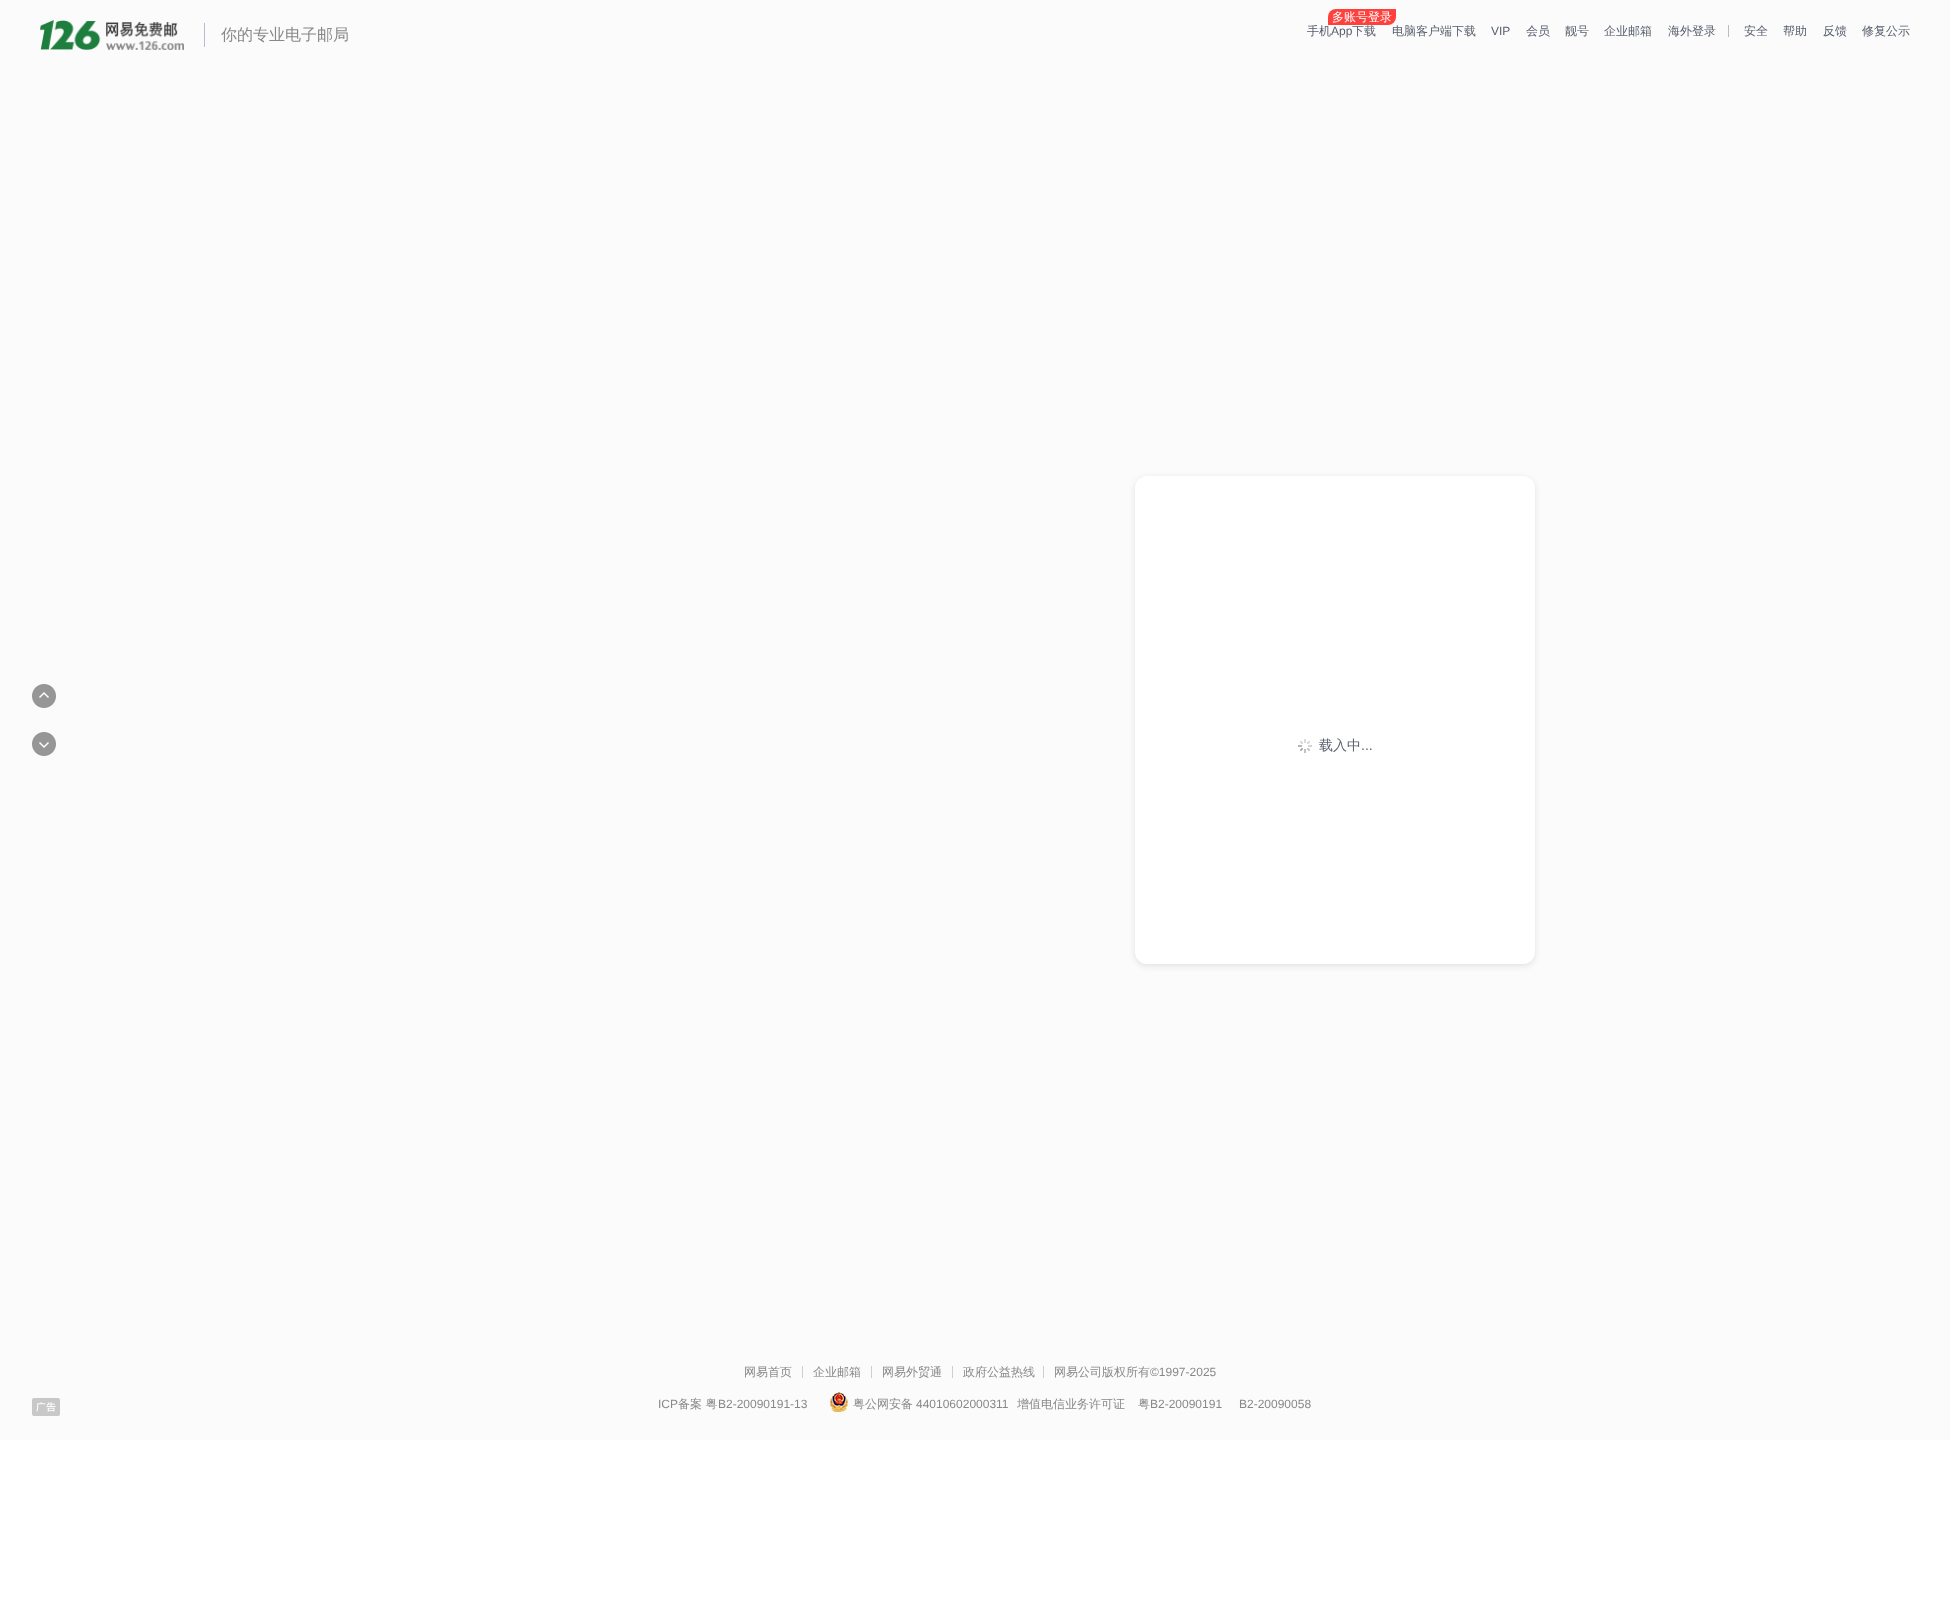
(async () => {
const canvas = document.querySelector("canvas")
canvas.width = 1950
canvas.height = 1608
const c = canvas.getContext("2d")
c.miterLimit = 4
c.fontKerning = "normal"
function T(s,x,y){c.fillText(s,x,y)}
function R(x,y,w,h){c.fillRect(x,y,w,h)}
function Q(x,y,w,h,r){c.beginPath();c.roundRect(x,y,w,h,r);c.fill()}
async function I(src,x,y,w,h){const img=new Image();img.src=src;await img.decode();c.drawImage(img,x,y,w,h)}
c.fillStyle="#fff"
R(0,0,1950,1608)
c.fillStyle="#fbfbfb"
R(0,0,1950,1440)
await I("1.png",40,20,144,30)
c.fillStyle="#b8bdcf"
R(204,23,1,24)
c.font="500 16px WenQuanYi Zen Hei"
c.fillStyle="#888"
T("你的专业电子邮局",221,40)
c.font="500 12px WenQuanYi Zen Hei"
c.fillStyle="#585e6d"
T("电脑客户端下载",1392,35)
c.fillStyle="#ff413e"
c.beginPath()
c.roundRect(1328,9,68,16,[8,0,8,0])
c.fill()
c.fillStyle="#fff"
T("多账号登录",1332,21)
c.fillStyle="#585e6d"
T("手机",1307,35)
c.font="12px Liberation Sans"
T("App",1331,35)
c.font="500 12px WenQuanYi Zen Hei"
T("下载",1352,35)
c.font="12px Liberation Sans"
T("VIP",1491,35)
c.font="500 12px WenQuanYi Zen Hei"
T("会员",1526,35)
T("靓号",1565,35)
T("企业邮箱",1604,35)
T("海外登录",1668,35)
c.fillStyle="#b7bcc7"
R(1728,25,1,12)
c.fillStyle="#585e6d"
T("安全",1744,35)
T("帮助",1783,35)
T("反馈",1823,35)
T("修复公示",1862,35)
await I("2.png",32,684,24,24)
await I("3.png",32,732,24,24)
await I("4.png",32,1398,28,18)
c.fillStyle="#0000001a"
c.filter="blur(3px)"
c.beginPath()
c.roundRect(1135,478,400,488,12)
c.fill()
c.filter="none"
c.fillStyle="#fff"
Q(1135,476,400,488,12)
await I("5.png",1298,739,14,14)
c.font="500 14px WenQuanYi Zen Hei"
c.fillStyle="#585e6d"
T("载入中",1319,750)
c.font="14px Liberation Sans"
T("...",1361,750)
c.font="500 12px WenQuanYi Zen Hei"
c.fillStyle="#888"
T("网易首页",744,1376)
c.fillStyle="#cfcfcf"
R(802,1366,1,12)
c.fillStyle="#888"
T("企业邮箱",813,1376)
c.fillStyle="#cfcfcf"
R(871,1366,1,12)
c.fillStyle="#888"
T("网易外贸通",882,1376)
c.fillStyle="#cfcfcf"
R(952,1366,1,12)
c.fillStyle="#888"
T("政府公益热线",963,1376)
c.fillStyle="#cfcfcf"
R(1043,1366,1,12)
c.fillStyle="#888"
T("网易公司版权所有",1054,1376)
c.font="12px Liberation Sans"
T("©1997-2025",1150,1376)
T("ICP",658,1408)
c.font="500 12px WenQuanYi Zen Hei"
T("备案 粤",678,1408)
c.font="12px Liberation Sans"
T("B2-20090191-13",718,1408)
await I("6.png",830,1392,18,20)
c.font="500 12px WenQuanYi Zen Hei"
T("粤公网安备",853,1408)
c.font="12px Liberation Sans"
T("44010602000311",916,1408)
c.font="500 12px WenQuanYi Zen Hei"
T("增值电信业务许可证",1017,1408)
T("粤",1138,1408)
c.font="12px Liberation Sans"
T("B2-20090191",1150,1408)
T("B2-20090058",1239,1408)
})()
